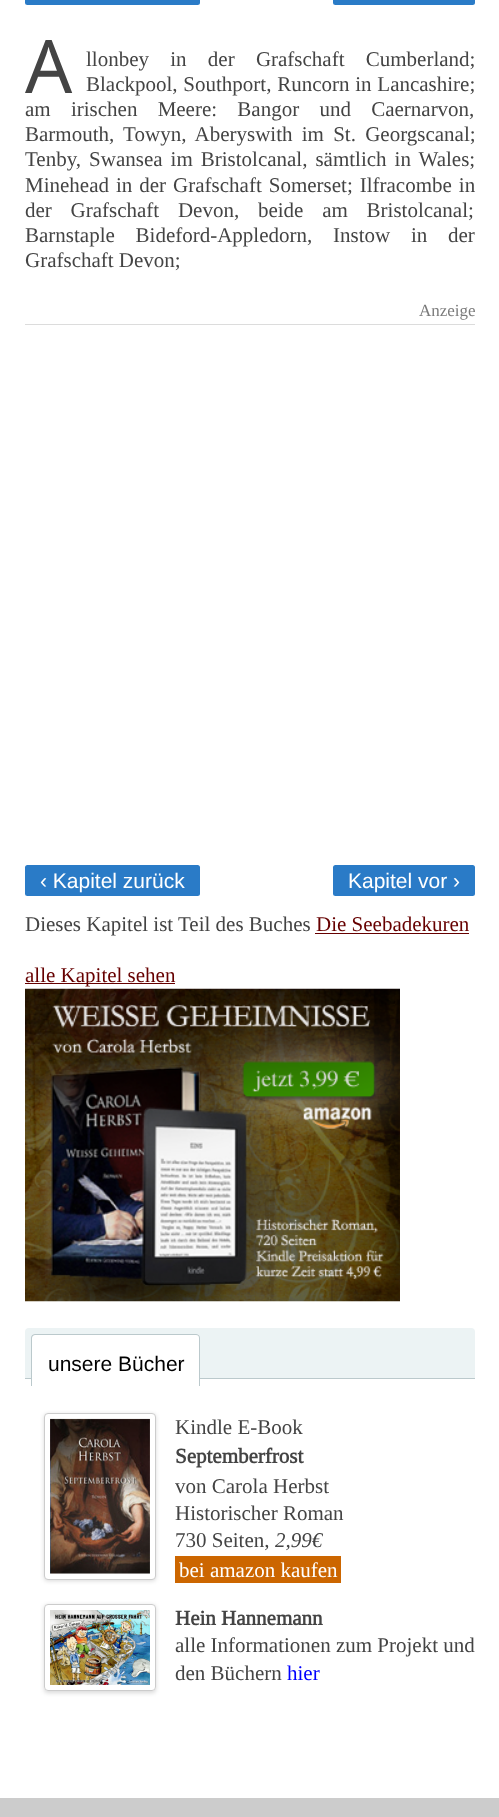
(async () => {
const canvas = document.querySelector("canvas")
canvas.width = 499
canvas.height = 1817
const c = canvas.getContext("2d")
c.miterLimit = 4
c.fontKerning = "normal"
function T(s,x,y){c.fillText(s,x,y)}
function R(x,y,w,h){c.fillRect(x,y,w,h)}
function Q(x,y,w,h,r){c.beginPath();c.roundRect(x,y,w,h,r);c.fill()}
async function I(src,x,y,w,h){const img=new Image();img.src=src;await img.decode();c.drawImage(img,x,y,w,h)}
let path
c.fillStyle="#fff"
R(0,0,499,1817)
c.fillStyle="#2a7bc7"
Q(25,-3,175,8,2.5)
Q(333,-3,142,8,2.5)
c.font="74px Noto Sans"
c.fillStyle="#444"
T("A",25,93)
c.wordSpacing="16px"
c.font="21px Tinos"
T("llonbey in der Grafschaft Cumberland;",86,66)
c.wordSpacing="0.5px"
T("Blackpool, Southport, Runcorn in Lancashire;",86,91)
c.wordSpacing="15px"
T("am irischen Meere: Bangor und Caernarvon,",25,116)
c.wordSpacing="4px"
T("Barmouth, Towyn, Aberyswith im St. Georgscanal;",25,141)
c.wordSpacing="2.75px"
T("Tenby, Swansea im Bristolcanal, sämtlich in Wales;",25,166)
c.wordSpacing="1.75px"
T("Minehead in der Grafschaft Somerset; Ilfracombe in",25,192)
c.wordSpacing="13.5px"
T("der Grafschaft Devon, beide am Bristolcanal;",25,217)
c.wordSpacing="15.5px"
T("Barnstaple Bideford-Appledorn, Instow in der",25,242)
c.wordSpacing="0px"
T("Grafschaft Devon;",25,267)
c.fillStyle="#dcdcdc"
R(25,324,450,1)
c.font="17px Tinos"
c.fillStyle="#7b7b7b"
T("Anzeige",419,316)
c.fillStyle="#2a7bc7"
Q(25,865,175,31,2.5)
c.font="21px Liberation Sans"
c.fillStyle="#fff"
T("‹ Kapitel zurück",40,888)
c.fillStyle="#2a7bc7"
Q(333,865,142,31,2.5)
c.fillStyle="#fff"
T("Kapitel vor ›",348,888)
c.font="21px Tinos"
c.fillStyle="#444"
T("Dieses Kapitel ist Teil des Buches",25,931)
c.fillStyle="#600"
T("Die Seebadekuren",316,931)
R(315,933,154,1)
R(25,983,150,1)
T("alle Kapitel sehen",25,982)
await I("1.png",25,988,375,314)
c.fillStyle="#ecf3f4"
c.beginPath()
c.roundRect(25,1328,450,51,[4,4,0,0])
c.fill()
c.fillStyle="#bbc9cc"
R(25,1378,450,1)
c.fillStyle="#fff"
c.beginPath()
c.roundRect(31,1334,169,52,[4,4,0,0])
c.fill()
c.fillStyle="#bbc9cc"
path = new Path2D("M35 1334h161c2 0 4 1 4 4v48h-169v-48c0-3 2-4 4-4zm0 1h161c2 0 3 1 3 3v48h-167v-48c0-2 2-3 3-3z")
c.fill(path,"evenodd")
c.font="21px Liberation Sans"
c.fillStyle="#000"
T("unsere Bücher",48,1371)
c.fillStyle="#00000026"
c.filter="blur(2px)"
c.beginPath()
c.roundRect(44,1414,112,167,4)
c.fill()
c.filter="none"
c.fillStyle="#fff"
c.beginPath()
c.roundRect(44.5,1413.5,111,166,3.5)
c.fill()
c.strokeStyle="#ccc"
c.stroke()
await I("2.png",50,1418,100,156)
c.font="21px Tinos"
c.fillStyle="#444"
T("Kindle E-Book",175,1434)
c.font="bold 21px Tinos"
T("Septemberfrost",175,1463)
c.font="21px Tinos"
T("von Carola Herbst",175,1493)
T("Historischer Roman",175,1520)
T("730 Seiten,",175,1547)
c.font="italic 21px Tinos"
T("2,99€",275,1547)
c.fillStyle="#c60"
R(175,1556,166,27)
c.font="21px Tinos"
c.fillStyle="#fff"
T("bei amazon kaufen",179,1577)
c.save()
path = new Path2D("M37 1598h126v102h-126zm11 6h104c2 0 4 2 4 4v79c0 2-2 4-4 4h-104c-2 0-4-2-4-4v-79c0-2 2-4 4-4z")
c.clip(path,"evenodd")
c.fillStyle="#00000026"
c.filter="blur(2px)"
c.beginPath()
c.roundRect(44,1605,112,88,4)
c.fill()
c.filter="none"
c.restore()
c.beginPath()
c.roundRect(44.5,1604.5,111,86,3.5)
c.stroke()
await I("3.png",50,1610,100,75)
c.font="bold 21px Tinos"
c.fillStyle="#444"
T("Hein Hannemann",175,1625)
c.font="21px Tinos"
T("alle Informationen zum Projekt und",175,1652)
T("den Büchern",175,1680)
c.fillStyle="#00f"
T("hier",287,1680)
c.fillStyle="#ccc"
R(0,1798,499,19)
})()
